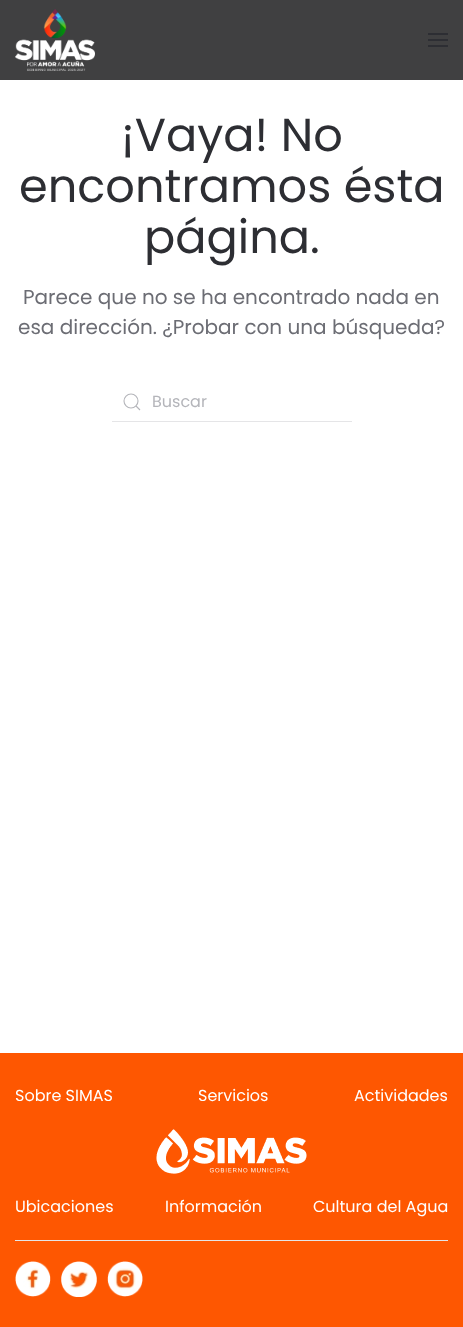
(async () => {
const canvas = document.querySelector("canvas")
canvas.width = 463
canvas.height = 1327
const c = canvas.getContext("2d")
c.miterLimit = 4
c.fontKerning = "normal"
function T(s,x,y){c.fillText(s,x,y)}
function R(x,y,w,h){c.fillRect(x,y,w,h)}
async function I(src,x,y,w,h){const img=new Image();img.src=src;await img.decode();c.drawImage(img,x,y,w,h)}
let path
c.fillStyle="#fff"
R(0,0,463,1327)
c.fillStyle="#404041"
R(0,0,463,80)
await I("1.png",15,9,80,62)
c.fillStyle="#2d2e33"
R(428,33,20,2)
R(428,39,20,2)
R(428,45,20,2)
c.font="46.25px Poppins"
T("¡Vaya! No",121,151)
T("encontramos ésta",19,202)
T("página.",144,253)
c.font="20px Poppins"
c.fillStyle="#6c6d74"
T("Parece que no se ha encontrado nada en",23,304)
T("esa dirección. ¿Probar con una búsqueda?",18,334)
c.beginPath()
c.arc(131,401,7,0,7)
c.strokeStyle="#b4b5ba"
c.lineWidth=1.1
c.stroke()
path = new Path2D("M136 406l4 4z")
c.stroke(path)
c.fillStyle="#e5e5e7"
R(112,421,240,1)
c.font="16px Poppins"
c.fillStyle="#b4b5ba"
T("Buscar",152,407)
c.fillStyle="#fe5701"
R(0,1053,463,274)
c.fillStyle="#fff"
T("Sobre SIMAS",15,1101)
T("Servicios",198,1101)
T("Actividades",354,1101)
await I("2.png",156,1129,151,45)
T("Ubicaciones",15,1212)
T("Información",165,1212)
T("Cultura del Agua",313,1212)
c.fillStyle="#e5e5e7"
R(15,1240,433,1)
await I("3.png",15,1261,36,36)
await I("4.png",61,1261,36,36)
await I("5.png",107,1261,36,36)
})()
